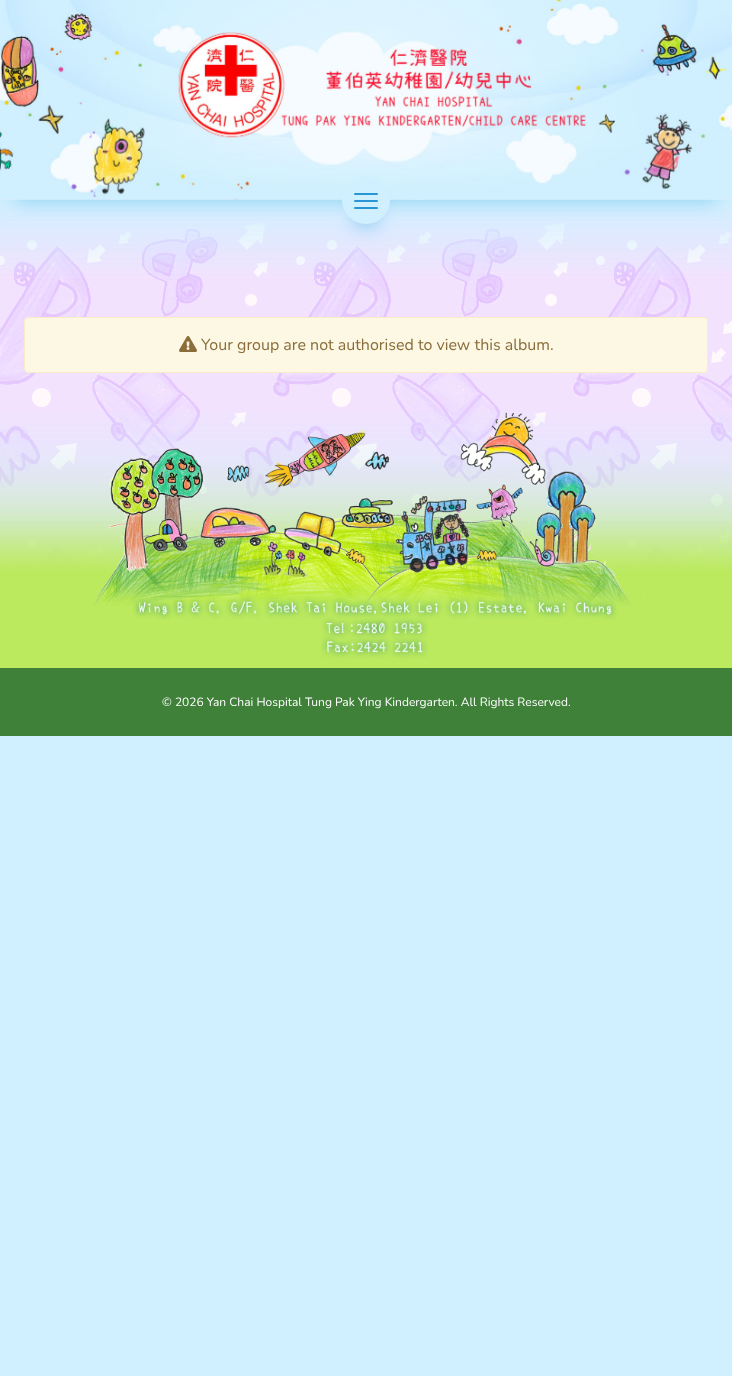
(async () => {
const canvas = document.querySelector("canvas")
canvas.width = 732
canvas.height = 1376
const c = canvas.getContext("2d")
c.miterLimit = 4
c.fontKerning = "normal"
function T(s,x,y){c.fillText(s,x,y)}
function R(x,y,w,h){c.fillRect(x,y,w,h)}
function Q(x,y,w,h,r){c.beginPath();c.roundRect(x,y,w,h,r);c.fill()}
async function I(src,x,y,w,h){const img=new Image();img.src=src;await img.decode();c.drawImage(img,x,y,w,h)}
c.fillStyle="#d0f0ff"
R(0,0,732,1376)
await I("1.png",0,0,732,571)
c.fillStyle="#008fd159"
c.filter="blur(10px)"
c.beginPath()
c.rect(15,30,702,170)
c.fill()
c.filter="none"
await I("2.png",0,0,732,200)
c.fillStyle="#008fd1bf"
c.filter="blur(10px)"
c.beginPath()
c.roundRect(357,206,18,18,9)
c.fill()
c.filter="none"
c.fillStyle="#d0f0ff"
c.beginPath()
c.arc(366,200,24,0,7)
c.fill()
c.fillStyle="#2896d5"
Q(354,193,24,2,1)
Q(354,200,24,2,1)
Q(354,207,24,2,1)
c.fillStyle="#fcf8e3"
c.beginPath()
c.roundRect(24.5,317.5,683,55,3.5)
c.fill()
c.strokeStyle="#faebcc"
c.stroke()
await I("3.png",179,336,18,16)
c.font="16px Nunito"
c.fillStyle="#8a6d3b"
T("Your group are not authorised to view this album.",201,350)
await I("4.png",0,412,732,256)
c.fillStyle="#3f8139"
R(0,668,732,68)
c.font="12px Nunito"
c.fillStyle="#fff"
T("© 2026 Yan Chai Hospital Tung Pak Ying Kindergarten. All Rights Reserved.",162,706)
})()
